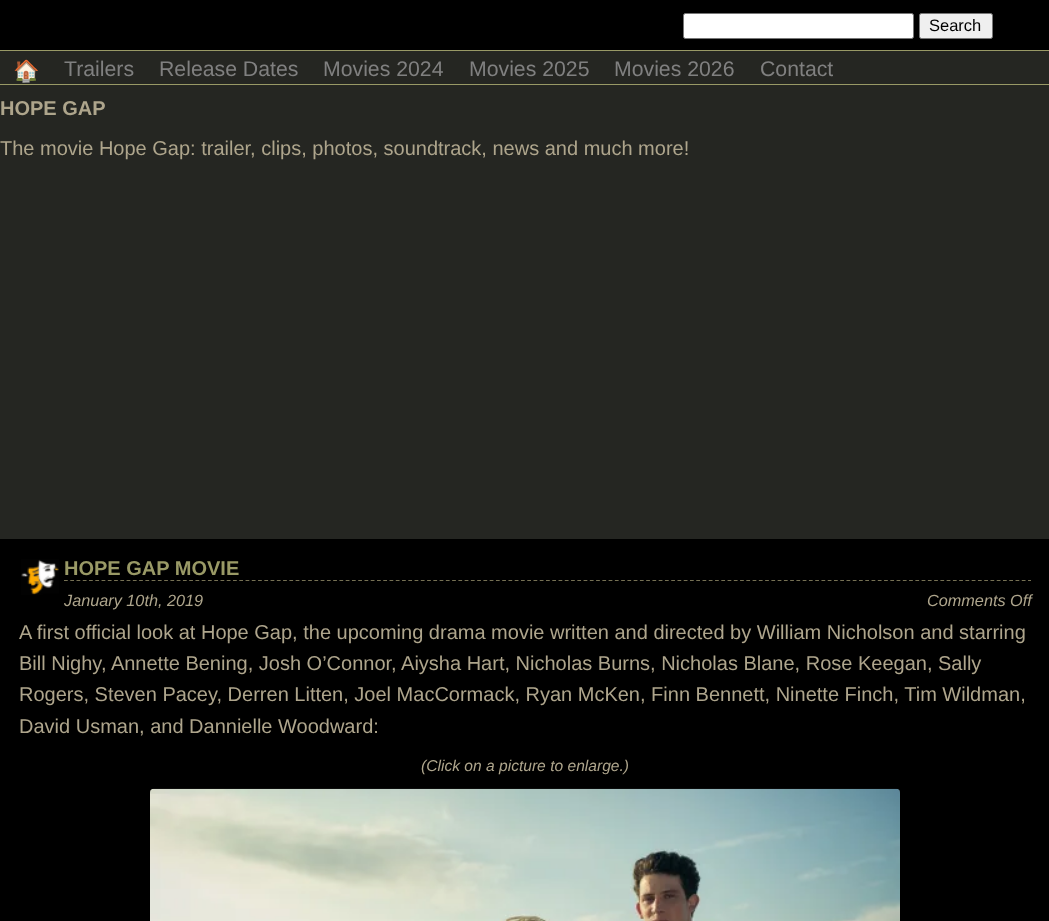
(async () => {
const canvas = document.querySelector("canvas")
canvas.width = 1049
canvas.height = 921
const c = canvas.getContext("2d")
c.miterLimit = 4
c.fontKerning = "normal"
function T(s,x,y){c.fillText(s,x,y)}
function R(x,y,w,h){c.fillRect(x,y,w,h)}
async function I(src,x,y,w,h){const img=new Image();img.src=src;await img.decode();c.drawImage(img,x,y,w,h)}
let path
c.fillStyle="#252622"
R(0,0,1049,921)
c.fillStyle="#000"
R(0,0,1049,50)
c.fillStyle="#fff"
c.beginPath()
c.roundRect(683.5,13.5,230,25,2)
c.fill()
c.strokeStyle="#767676"
c.stroke()
c.fillStyle="#efefef"
c.beginPath()
c.roundRect(919.5,13.5,73,25,2)
c.fill()
c.stroke()
c.font="16.5px Liberation Sans"
c.fillStyle="#000"
T("Search",929,31)
c.fillStyle="#996"
R(0,50,1049,1)
R(0,84,1049,1)
c.font="21.25px Noto Color Emoji"
c.fillStyle="#808080"
T("🏠",13,78)
c.font="21.25px Liberation Sans"
T("Trailers",64,76)
T("Release Dates",159,76)
T("Movies 2024",323,76)
T("Movies 2025",469,76)
T("Movies 2026",614,76)
T("Contact",760,76)
c.font="bold 20px Liberation Sans"
c.fillStyle="#aea58c"
T("HOPE GAP",0,115)
c.font="20px Liberation Sans"
T("The movie Hope Gap: trailer, clips, photos, soundtrack, news and much more!",0,155)
c.fillStyle="#000"
R(0,539,1049,382)
await I("1.png",21,559,38,36)
path = new Path2D("M64 580.5h967")
c.strokeStyle="#767154"
c.lineWidth=1.2
c.setLineDash([3.75,2.51])
c.stroke(path)
c.font="bold 20px Liberation Sans"
c.fillStyle="#996"
T("HOPE GAP MOVIE",64,575)
c.font="italic 16.25px Liberation Sans"
c.fillStyle="#aea58c"
T("January 10th, 2019",64,606)
T("Comments Off",927,606)
c.font="20px Liberation Sans"
T("A first official look at Hope Gap, the upcoming drama movie written and directed by William Nicholson and starring",19,639)
T("Bill Nighy, Annette Bening, Josh O’Connor, Aiysha Hart, Nicholas Burns, Nicholas Blane, Rose Keegan, Sally",19,670)
T("Rogers, Steven Pacey, Derren Litten, Joel MacCormack, Ryan McKen, Finn Bennett, Ninette Finch, Tim Wildman,",19,701)
T("David Usman, and Dannielle Woodward:",19,733)
c.font="italic 15.6px Liberation Sans"
T("(Click on a picture to enlarge.)",421,771)
await I("2.png",150,788,750,133)
})()
